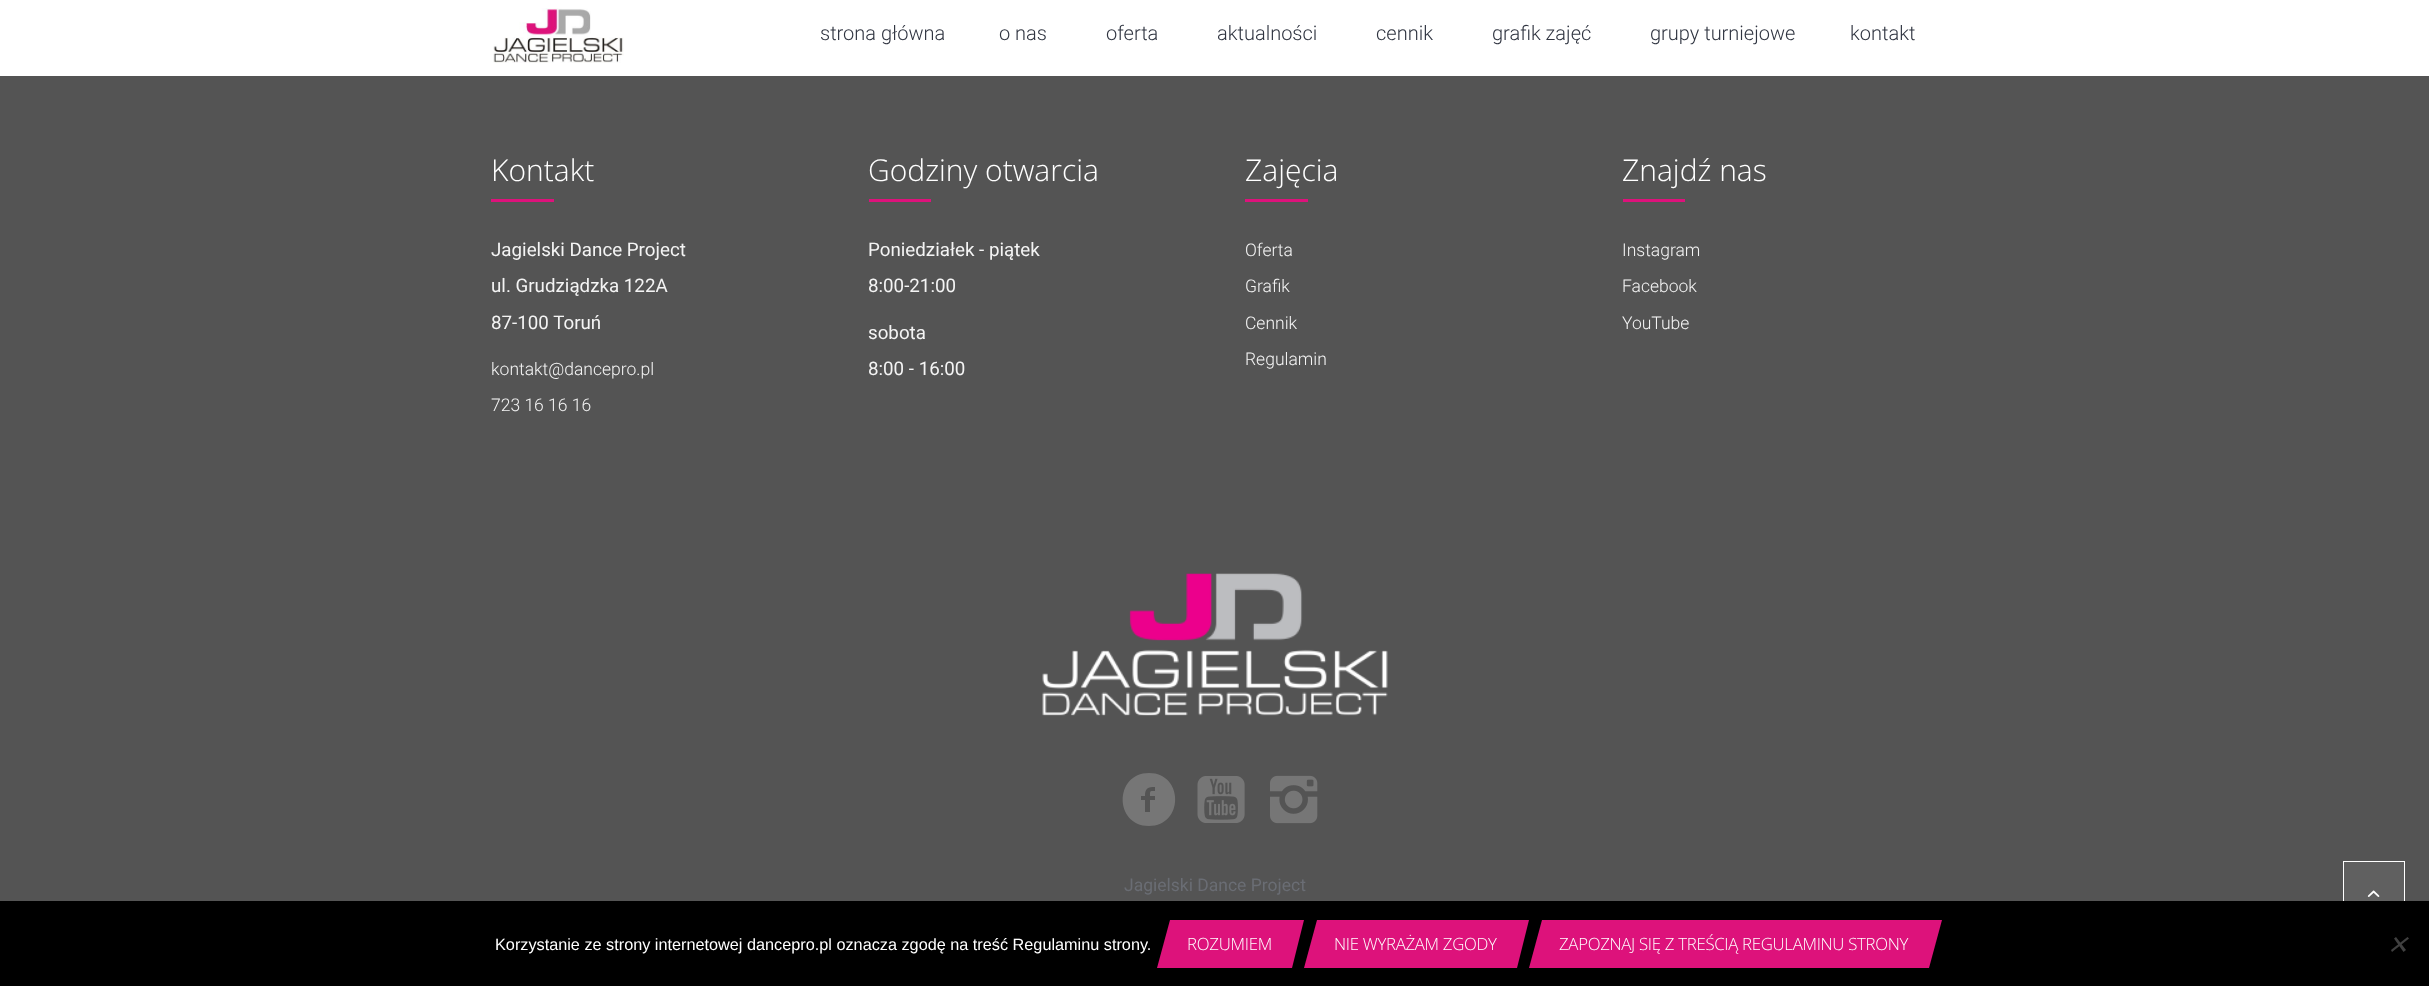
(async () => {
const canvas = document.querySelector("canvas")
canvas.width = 2429
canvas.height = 986
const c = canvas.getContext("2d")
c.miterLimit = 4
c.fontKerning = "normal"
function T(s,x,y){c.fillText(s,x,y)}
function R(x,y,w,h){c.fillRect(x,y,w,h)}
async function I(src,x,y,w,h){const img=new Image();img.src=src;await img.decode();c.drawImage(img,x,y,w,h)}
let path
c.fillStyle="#fff"
R(0,0,2429,986)
await I("1.png",493,8,131,55)
c.font="300 20px Roboto"
c.fillStyle="#2f3440"
T("strona główna",820,40)
T("o nas",999,40)
T("oferta",1106,40)
T("aktualności",1217,40)
T("cennik",1376,40)
T("grafik zajęć",1492,40)
T("grupy turniejowe",1650,40)
T("kontakt",1850,40)
c.fillStyle="#545454"
R(0,76,2429,825)
c.font="300 30px Open Sans"
c.fillStyle="#fff"
T("Kontakt",491,181)
c.fillStyle="#dd127b"
R(491,199,63,3)
c.font="18.75px Roboto"
c.fillStyle="#f4f4f4"
T("Jagielski Dance Project",491,256)
T("ul. Grudziądzka 122A",491,292)
T("87-100 Toruń",491,329)
c.font="300 17.5px Roboto"
T("kontakt@dancepro.pl",491,375)
T("723 16 16 16",491,411)
c.font="300 30px Open Sans"
c.fillStyle="#fff"
T("Godziny otwarcia",868,181)
c.fillStyle="#dd127b"
R(869,199,62,3)
c.font="18.75px Roboto"
c.fillStyle="#f4f4f4"
T("Poniedziałek - piątek",868,256)
T("8:00-21:00",868,292)
T("sobota",868,339)
T("8:00 - 16:00",868,375)
c.font="300 30px Open Sans"
c.fillStyle="#fff"
T("Zajęcia",1245,181)
c.fillStyle="#dd127b"
R(1245,199,63,3)
c.font="300 17.5px Roboto"
c.fillStyle="#f4f4f4"
T("Oferta",1245,256)
T("Grafik",1245,292)
T("Cennik",1245,329)
T("Regulamin",1245,365)
c.font="300 30px Open Sans"
c.fillStyle="#fff"
T("Znajdź nas",1622,181)
c.fillStyle="#dd127b"
R(1623,199,62,3)
c.font="300 17.5px Roboto"
c.fillStyle="#f4f4f4"
T("Instagram",1622,256)
T("Facebook",1622,292)
T("YouTube",1622,329)
c.fillStyle="#606060"
R(2344,862,60,39)
c.strokeStyle="#fff"
c.strokeRect(2343.5,861.5,61,62)
await I("2.png",2367,890,13,7)
await I("3.png",1042,573,346,143)
c.fillStyle="#767676"
path = new Path2D("M1149 773c35 0 35 53 0 53c-35 0-35-53 0-53zm6 18v-4c-7 0-10 1-10 9h-4v4h4v12h5v-12h5v-4h-5c0-6 0-5 5-5z")
c.fill(path)
await I("4.png",1197,776,48,47)
await I("5.png",1270,775,48,49)
c.font="17.5px Roboto"
c.fillStyle="#6a6d74"
T("Jagielski Dance Project",1124,891)
c.fillStyle="#000"
R(0,901,2429,85)
c.font="16.25px Liberation Sans"
c.fillStyle="#fff"
T("Korzystanie ze strony internetowej dancepro.pl oznacza zgodę na treść Regulaminu strony.",495,950)
c.fillStyle="#dd127b"
path = new Path2D("M1170 920h134l-12 48h-135z")
c.fill(path)
c.letterSpacing="-0.25px"
c.font="300 16.8px Open Sans"
c.fillStyle="#fff"
T("ROZUMIEM",1187,950)
c.fillStyle="#dd127b"
path = new Path2D("M1317 920h212l-12 48h-213z")
c.fill(path)
c.letterSpacing="-0.3px"
c.fillStyle="#fff"
T("NIE WYRAŻAM ZGODY",1334,950)
c.fillStyle="#dd127b"
path = new Path2D("M1542 920h400l-13 48h-400z")
c.fill(path)
c.fillStyle="#fff"
T("ZAPOZNAJ SIĘ Z TREŚCIĄ REGULAMINU STRONY",1559,950)
c.fillStyle="#404040"
path = new Path2D("M2407.5 937l1.5 1.5l-17 13.5l-1-2z")
c.fill(path)
path = new Path2D("M2394 938.5l2-1.5l10 13l-2.5 2z")
c.fill(path)
})()
